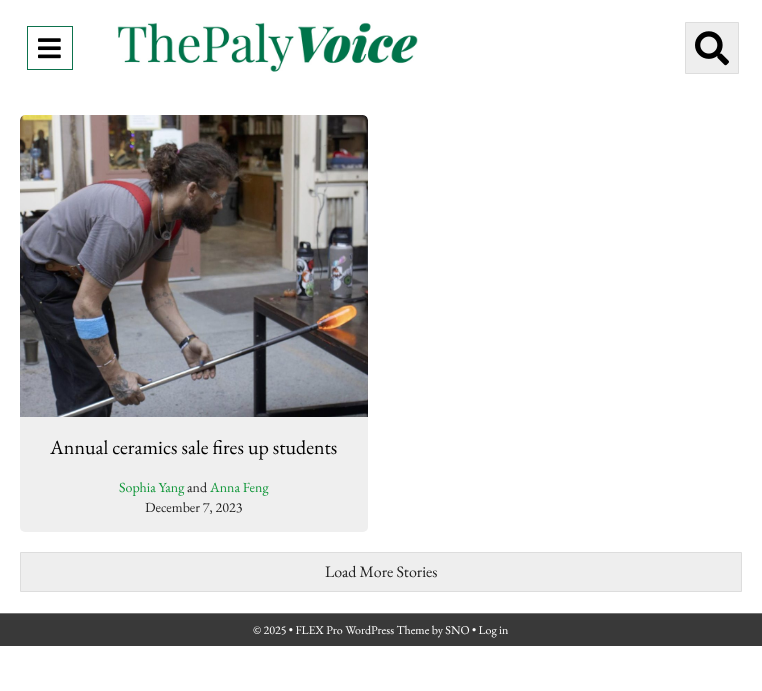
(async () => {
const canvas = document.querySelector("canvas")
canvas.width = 762
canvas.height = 691
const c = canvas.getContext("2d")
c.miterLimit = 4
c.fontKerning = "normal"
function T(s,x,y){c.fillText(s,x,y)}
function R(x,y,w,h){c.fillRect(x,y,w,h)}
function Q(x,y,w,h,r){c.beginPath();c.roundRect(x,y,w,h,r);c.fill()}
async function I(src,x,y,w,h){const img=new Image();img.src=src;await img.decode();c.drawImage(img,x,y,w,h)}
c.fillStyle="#fff"
R(0,0,762,691)
c.strokeStyle="#0d724d"
c.strokeRect(27.5,26.5,45,43)
await I("1.png",38,38,23,21)
await I("2.png",117,22,301,50)
c.fillStyle="#eee"
c.beginPath()
c.rect(685.5,22.5,53,51)
c.fill()
c.strokeStyle="#ddd"
c.stroke()
await I("3.png",695,31,34,35)
c.fillStyle="#efefef"
Q(20,115,348,417,5)
c.fillStyle="#ddd"
c.beginPath()
c.roundRect(20,115,348,302,[5,5,0,0])
c.fill()
await I("4.png",20,115,348,302)
c.font="20px EB Garamond"
c.fillStyle="#000"
T("Annual ceramics sale fires up students",50,454)
c.font="14px EB Garamond"
c.fillStyle="#11973a"
T("Sophia Yang",119,492)
c.fillStyle="#222"
T("and",187,492)
c.fillStyle="#11973a"
T("Anna Feng",210,492)
c.fillStyle="#222"
T("December 7, 2023",145,512)
c.fillStyle="#eee"
c.beginPath()
c.rect(20.5,552.5,721,39)
c.fill()
c.stroke()
c.font="16px EB Garamond"
c.fillStyle="#222"
T("Load More Stories",325,577)
c.fillStyle="#393939"
R(0,614,762,32)
c.fillStyle="#777"
R(0,613,762,1)
c.font="12px EB Garamond"
c.fillStyle="#fff"
T("© 2025 • FLEX Pro WordPress Theme by SNO • Log in",253,634)
})()
